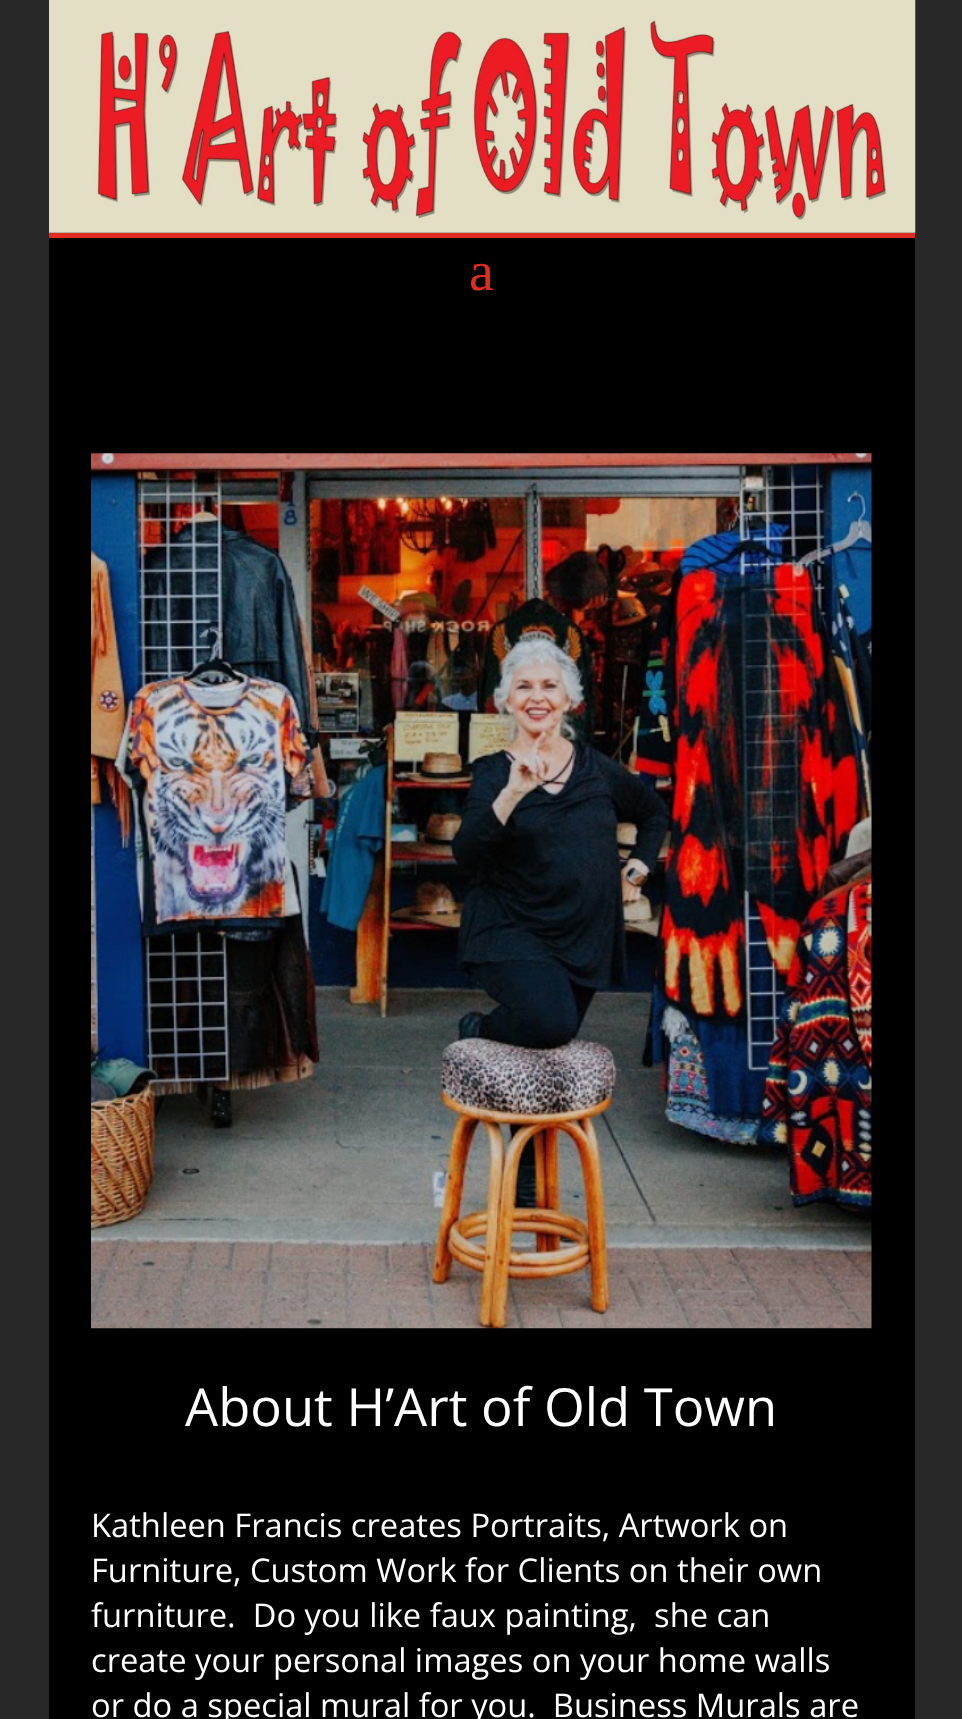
(async () => {
const canvas = document.querySelector("canvas")
canvas.width = 962
canvas.height = 1719
const c = canvas.getContext("2d")
c.miterLimit = 4
c.fontKerning = "normal"
function T(s,x,y){c.fillText(s,x,y)}
function R(x,y,w,h){c.fillRect(x,y,w,h)}
async function I(src,x,y,w,h){const img=new Image();img.src=src;await img.decode();c.drawImage(img,x,y,w,h)}
c.fillStyle="#282828"
R(0,0,962,1719)
c.fillStyle="#e02b20"
R(49,233,866,5)
await I("1.png",49,0,867,233)
c.fillStyle="#000"
R(49,238,866,1481)
c.font="56px Liberation Serif"
c.fillStyle="#e02b20"
T("a",469,290)
await I("2.png",91,453,781,876)
c.font="52.5px Open Sans"
c.fillStyle="#fff"
T("About H’Art of Old Town",185,1426)
c.font="32.7px Open Sans"
T("Kathleen Francis creates Portraits, Artwork on",91,1537)
T("Furniture, Custom Work for Clients on their own",91,1582)
T("furniture.  Do you like faux painting,  she can",91,1627)
T("create your personal images on your home walls",91,1672)
T("or do a special mural for you.  Business Murals are",91,1717)
})()
